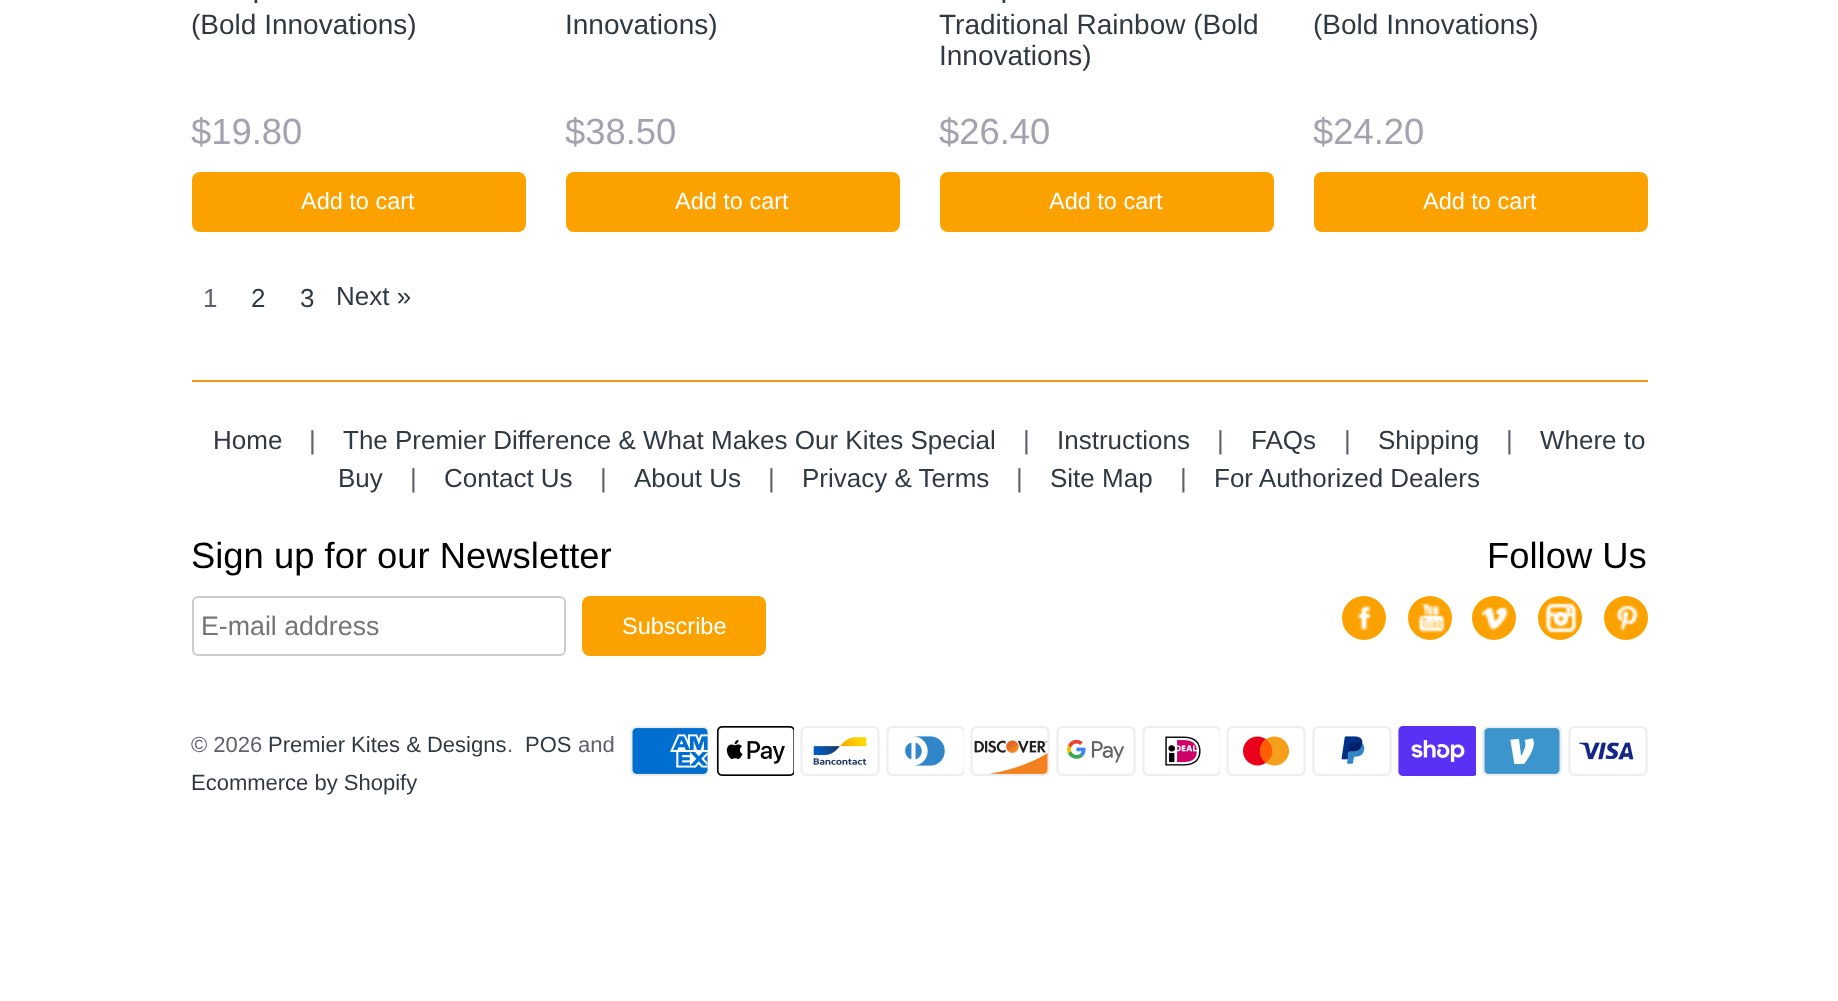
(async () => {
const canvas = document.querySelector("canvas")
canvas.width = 1838
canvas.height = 1001
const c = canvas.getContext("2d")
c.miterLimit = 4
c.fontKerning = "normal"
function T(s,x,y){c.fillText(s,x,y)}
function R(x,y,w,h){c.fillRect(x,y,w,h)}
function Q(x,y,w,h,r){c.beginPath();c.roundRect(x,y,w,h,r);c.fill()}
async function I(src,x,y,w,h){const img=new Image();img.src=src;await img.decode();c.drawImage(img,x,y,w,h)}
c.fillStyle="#fff"
R(0,0,1838,1001)
c.font="28px Liberation Sans"
c.fillStyle="#303942"
T(".",252,3)
T("(Bold Innovations)",191,34)
c.font="36.4px Liberation Sans"
c.fillStyle="#a3a3af"
T("$19.80",191,144)
c.fillStyle="#fca200"
Q(192,172,334,60,8)
c.font="23.5px Liberation Sans"
c.fillStyle="#fff"
T("Add to cart",301,209)
c.font="28px Liberation Sans"
c.fillStyle="#303942"
T("Innovations)",565,34)
c.font="36.4px Liberation Sans"
c.fillStyle="#a3a3af"
T("$38.50",565,144)
c.fillStyle="#fca200"
Q(566,172,334,60,8)
c.font="23.5px Liberation Sans"
c.fillStyle="#fff"
T("Add to cart",675,209)
c.font="28px Liberation Sans"
c.fillStyle="#303942"
T(".",1000,3)
T("Traditional Rainbow (Bold",939,34)
T("Innovations)",939,65)
c.font="36.4px Liberation Sans"
c.fillStyle="#a3a3af"
T("$26.40",939,144)
c.fillStyle="#fca200"
Q(940,172,334,60,8)
c.font="23.5px Liberation Sans"
c.fillStyle="#fff"
T("Add to cart",1049,209)
c.font="28px Liberation Sans"
c.fillStyle="#303942"
T("(Bold Innovations)",1313,34)
c.font="36.4px Liberation Sans"
c.fillStyle="#a3a3af"
T("$24.20",1313,144)
c.fillStyle="#fca200"
Q(1314,172,334,60,8)
c.font="23.5px Liberation Sans"
c.fillStyle="#fff"
T("Add to cart",1423,209)
c.font="26px Liberation Sans"
c.fillStyle="#60606d"
T("1",203,307)
c.fillStyle="#303942"
T("2",251,307)
T("3",300,307)
T("Next »",336,305)
c.fillStyle="#ff9712"
R(192,380,1456,2)
c.fillStyle="#303942"
T("Home",213,449)
c.fillStyle="#60606d"
T("|",309,449)
c.fillStyle="#303942"
T("The Premier Difference & What Makes Our Kites Special",343,449)
c.fillStyle="#60606d"
T("|",1023,449)
c.fillStyle="#303942"
T("Instructions",1057,449)
c.fillStyle="#60606d"
T("|",1217,449)
c.fillStyle="#303942"
T("FAQs",1251,449)
c.fillStyle="#60606d"
T("|",1344,449)
c.fillStyle="#303942"
T("Shipping",1378,449)
c.fillStyle="#60606d"
T("|",1506,449)
c.fillStyle="#303942"
T("Where to",1540,449)
T("Buy",338,487)
c.fillStyle="#60606d"
T("|",410,487)
c.fillStyle="#303942"
T("Contact Us",444,487)
c.fillStyle="#60606d"
T("|",600,487)
c.fillStyle="#303942"
T("About Us",634,487)
c.fillStyle="#60606d"
T("|",768,487)
c.fillStyle="#303942"
T("Privacy & Terms",802,487)
c.fillStyle="#60606d"
T("|",1016,487)
c.fillStyle="#303942"
T("Site Map",1050,487)
c.fillStyle="#60606d"
T("|",1180,487)
c.fillStyle="#303942"
T("For Authorized Dealers",1214,487)
c.font="36.4px Liberation Sans"
c.fillStyle="#000"
T("Sign up for our Newsletter",191,568)
c.beginPath()
c.roundRect(193,597,372,58,5)
c.strokeStyle="#ccc"
c.lineWidth=2
c.stroke()
c.font="26.75px Liberation Sans"
c.fillStyle="#757575"
T("E-mail address",201,635)
c.fillStyle="#fca200"
Q(582,596,184,60,8)
c.font="23.5px Liberation Sans"
c.fillStyle="#fff"
T("Subscribe",622,634)
c.font="36.4px Liberation Sans"
c.fillStyle="#000"
T("Follow Us",1487,568)
c.fillStyle="#fca200"
c.beginPath()
c.arc(1364,618,22,0,7)
c.fill()
await I("1.png",1357,605,14,26)
c.beginPath()
c.arc(1430,618,22,0,7)
c.fill()
await I("2.png",1417,603,28,30)
c.beginPath()
c.arc(1494,618,22,0,7)
c.fill()
await I("3.png",1481,607,28,24)
c.beginPath()
c.arc(1560,618,22,0,7)
c.fill()
await I("4.png",1545,603,32,30)
c.beginPath()
c.arc(1626,618,22,0,7)
c.fill()
await I("5.png",1615,605,24,27)
c.font="22px Liberation Sans"
c.fillStyle="#60606d"
T("© 2026",191,752)
c.fillStyle="#303942"
T("Premier Kites & Designs",268,752)
c.fillStyle="#60606d"
T(".",507,752)
c.fillStyle="#303942"
T("POS",525,752)
c.fillStyle="#60606d"
T("and",578,752)
await I("6.png",630,726,78,50)
await I("7.png",716,726,78,50)
await I("8.png",800,726,80,50)
await I("9.png",886,726,78,50)
await I("10.png",970,726,80,50)
await I("11.png",1056,726,80,50)
await I("12.png",1142,726,78,50)
await I("13.png",1226,726,80,50)
await I("14.png",1312,726,80,50)
await I("15.png",1398,726,78,50)
await I("16.png",1482,726,80,50)
await I("17.png",1568,726,80,50)
c.fillStyle="#303942"
T("Ecommerce by Shopify",191,790)
})()
